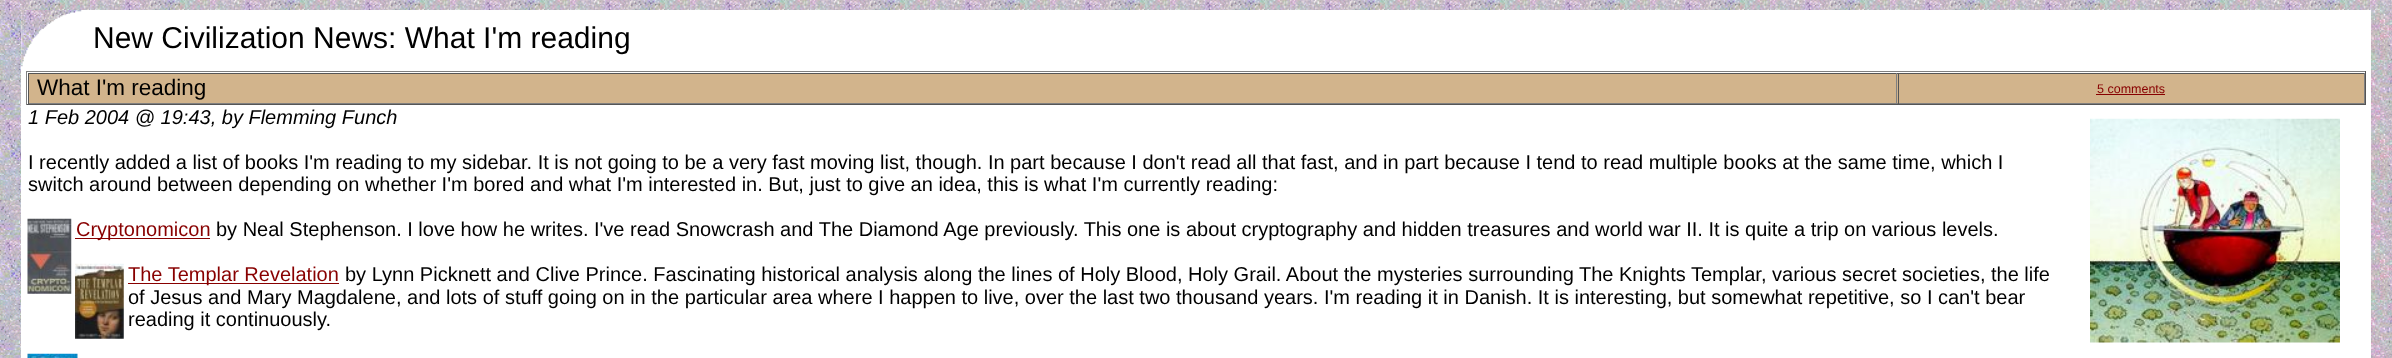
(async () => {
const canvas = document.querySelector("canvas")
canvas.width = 2392
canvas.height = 358
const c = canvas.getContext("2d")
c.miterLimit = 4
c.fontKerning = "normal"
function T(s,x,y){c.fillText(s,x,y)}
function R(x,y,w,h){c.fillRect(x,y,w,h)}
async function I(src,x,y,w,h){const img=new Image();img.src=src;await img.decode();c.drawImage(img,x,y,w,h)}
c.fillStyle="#fff"
R(0,0,2392,358)
await I("1.png",0,0,2392,358)
R(21,10,2350,348)
await I("2.png",21,10,61,57)
c.font="30px Liberation Sans"
c.fillStyle="#000"
T("New Civilization News: What I'm reading",93,48)
c.fillStyle="#808080"
R(26,71,2340,1)
c.fillStyle="#555"
R(2365,71,1,34)
R(26,104,2340,1)
c.fillStyle="#808080"
R(26,71,1,34)
c.fillStyle="#d2b48c"
R(29,74,2335,29)
c.fillStyle="#555"
R(28,73,2337,1)
c.fillStyle="#808080"
R(1896,73,1,31)
R(28,103,1870,1)
c.fillStyle="#555"
R(28,73,1,31)
c.font="22.5px Liberation Sans"
c.fillStyle="#000"
T("What I'm reading",37,95)
c.fillStyle="#808080"
R(2364,73,1,31)
R(1898,103,467,1)
c.fillStyle="#555"
R(1898,73,1,31)
c.font="12.5px Liberation Sans"
c.fillStyle="#800"
T("5 comments",2097,93)
R(2096,94,69,1)
c.font="italic 20px Liberation Sans"
c.fillStyle="#000"
T("1 Feb 2004 @ 19:43, by Flemming Funch",28,124)
await I("3.png",2090,118,250,225)
c.font="20px Liberation Sans"
T("I recently added a list of books I'm reading to my sidebar. It is not going to be a very fast moving list, though. In part because I don't read all that fast, and in part because I tend to read multiple books at the same time, which I",28,169)
T("switch around between depending on whether I'm bored and what I'm interested in. But, just to give an idea, this is what I'm currently reading:",28,191)
await I("4.png",27,218,45,76)
c.fillStyle="#800"
R(75,238,135,1)
T("Cryptonomicon",76,236)
c.fillStyle="#000"
T("by Neal Stephenson. I love how he writes. I've read Snowcrash and The Diamond Age previously. This one is about cryptography and hidden treasures and world war II. It is quite a trip on various levels.",216,236)
await I("5.png",75,263,49,76)
c.fillStyle="#800"
R(128,283,211,1)
T("The Templar Revelation",128,281)
c.fillStyle="#000"
T("by Lynn Picknett and Clive Prince. Fascinating historical analysis along the lines of Holy Blood, Holy Grail. About the mysteries surrounding The Knights Templar, various secret societies, the life",345,281)
T("of Jesus and Mary Magdalene, and lots of stuff going on in the particular area where I happen to live, over the last two thousand years. I'm reading it in Danish. It is interesting, but somewhat repetitive, so I can't bear",128,304)
T("reading it continuously.",128,326)
await I("6.png",27,353,51,5)
})()
